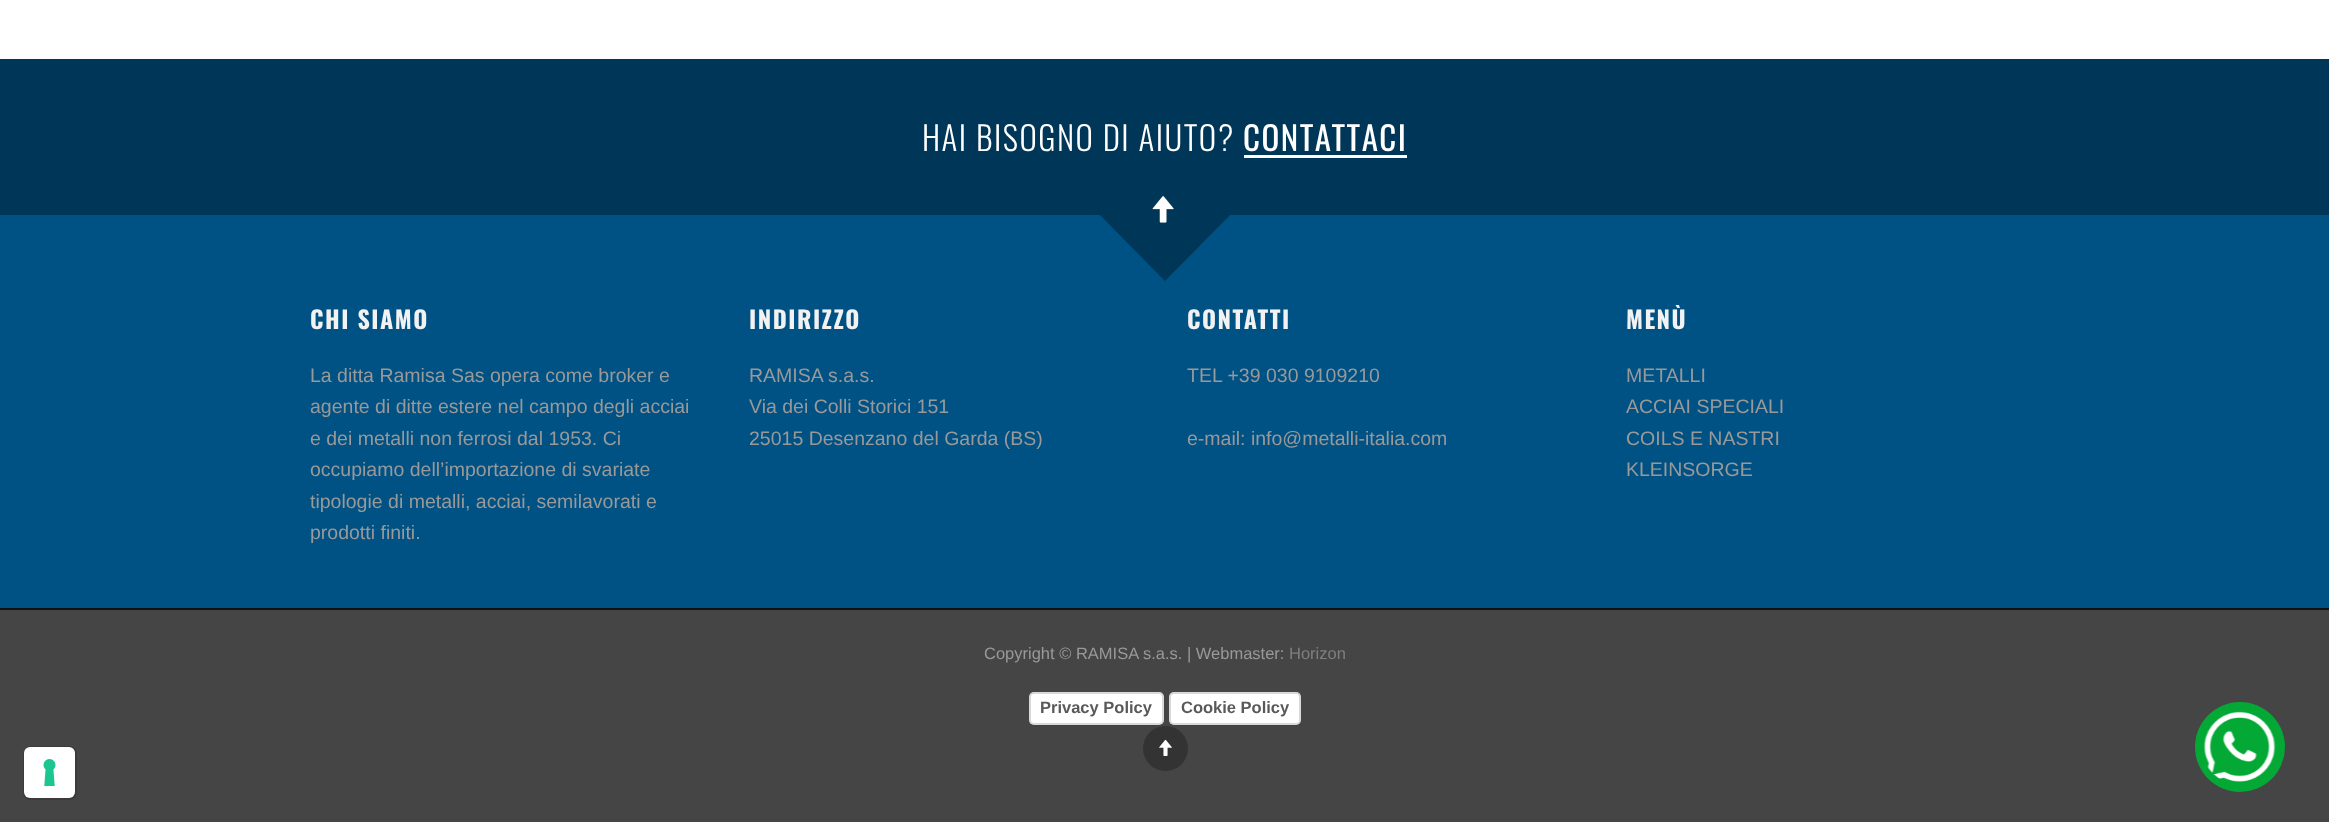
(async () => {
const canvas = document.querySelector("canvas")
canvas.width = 2329
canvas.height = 822
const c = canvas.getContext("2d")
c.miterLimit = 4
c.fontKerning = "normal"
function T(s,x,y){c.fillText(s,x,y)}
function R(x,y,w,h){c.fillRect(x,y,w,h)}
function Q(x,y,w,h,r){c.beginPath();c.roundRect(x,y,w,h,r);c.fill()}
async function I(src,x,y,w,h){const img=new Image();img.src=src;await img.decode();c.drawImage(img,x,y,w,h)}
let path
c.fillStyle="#fff"
R(0,0,2329,822)
c.fillStyle="#003658"
R(0,59,2329,156)
c.fillStyle="#005284"
R(0,215,2329,393)
c.fillStyle="#003658"
path = new Path2D("M1165 132l74 74l-74 75l-74-75z")
c.fill(path)
c.letterSpacing="1.5px"
c.font="300 33px Oswald"
c.fillStyle="#fff"
T("HAI BISOGNO DI AIUTO?",922,151)
c.font="33px Oswald"
T("CONTATTACI",1243,151)
R(1244,155,163,3)
await I("1.png",1152,196,22,27)
c.save()
c.beginPath()
c.rect(311,305,393,30)
c.clip()
c.font="bold 24px Oswald"
c.fillStyle="#f2f2f2"
T("CHI SIAMO",310,329)
c.restore()
c.letterSpacing="0px"
c.font="19.5px Arimo"
c.fillStyle="#999"
T("La ditta Ramisa Sas opera come broker e",310,382)
T("agente di ditte estere nel campo degli acciai",310,413)
T("e dei metalli non ferrosi dal 1953. Ci",310,445)
T("occupiamo dell’importazione di svariate",310,476)
T("tipologie di metalli, acciai, semilavorati e",310,508)
T("prodotti finiti.",310,539)
c.letterSpacing="1.5px"
c.font="bold 24px Oswald"
c.fillStyle="#f2f2f2"
T("INDIRIZZO",749,329)
c.letterSpacing="0px"
c.font="19.5px Arimo"
c.fillStyle="#999"
T("RAMISA s.a.s.",749,382)
T("Via dei Colli Storici 151",749,413)
T("25015 Desenzano del Garda (BS)",749,445)
c.letterSpacing="1.5px"
c.font="bold 24px Oswald"
c.fillStyle="#f2f2f2"
T("CONTATTI",1187,329)
c.letterSpacing="0px"
c.font="19.5px Arimo"
c.fillStyle="#999"
T("TEL +39 030 9109210",1187,382)
T("e-mail: info@metalli-italia.com",1187,445)
c.save()
c.beginPath()
c.rect(1626,305,395,30)
c.clip()
c.letterSpacing="1.5px"
c.font="bold 24px Oswald"
c.fillStyle="#f2f2f2"
T("MENÙ",1626,329)
c.restore()
T("METALLI",1626,382)
T("ACCIAI SPECIALI",1626,413)
T("COILS E NASTRI",1626,445)
T("KLEINSORGE",1626,476)
c.fillStyle="#454545"
R(0,610,2329,212)
c.fillStyle="#111"
R(0,608,2329,2)
c.font="16.5px Arimo"
c.fillStyle="#999"
T("Copyright © RAMISA s.a.s. | Webmaster:",984,659)
c.fillStyle="#7f7f7f"
T("Horizon",1289,659)
c.fillStyle="#00000026"
c.filter="blur(1px)"
c.beginPath()
c.roundRect(1031,695,132,30,3)
c.fill()
c.filter="none"
c.fillStyle="#fff"
Q(1029,692,135,33,5)
c.beginPath()
c.roundRect(1030,693,133,31,4)
c.strokeStyle="#00000026"
c.lineWidth=2
c.stroke()
c.font="bold 16.5px Liberation Sans"
c.fillStyle="#595959"
T("Privacy Policy",1040,713)
c.fillStyle="#00000026"
c.filter="blur(1px)"
c.beginPath()
c.roundRect(1170,695,129,30,3)
c.fill()
c.filter="none"
c.fillStyle="#fff"
Q(1169,692,132,33,5)
c.beginPath()
c.roundRect(1170,693,130,31,4)
c.stroke()
c.fillStyle="#595959"
T("Cookie Policy",1181,713)
c.fillStyle="#333"
c.beginPath()
c.arc(1165.5,748.5,22.5,0,7)
c.fill()
await I("2.png",1159,739,13,17)
c.fillStyle="#04a835"
c.beginPath()
c.arc(2240,747,45,0,7)
c.fill()
await I("3.png",2203,711,73,71)
c.beginPath()
c.roundRect(24,747,52,52,7)
c.strokeStyle="#3b3b3b"
c.stroke()
c.fillStyle="#fff"
Q(24,747,51,51,6)
await I("4.png",43,759,13,27)
})()
